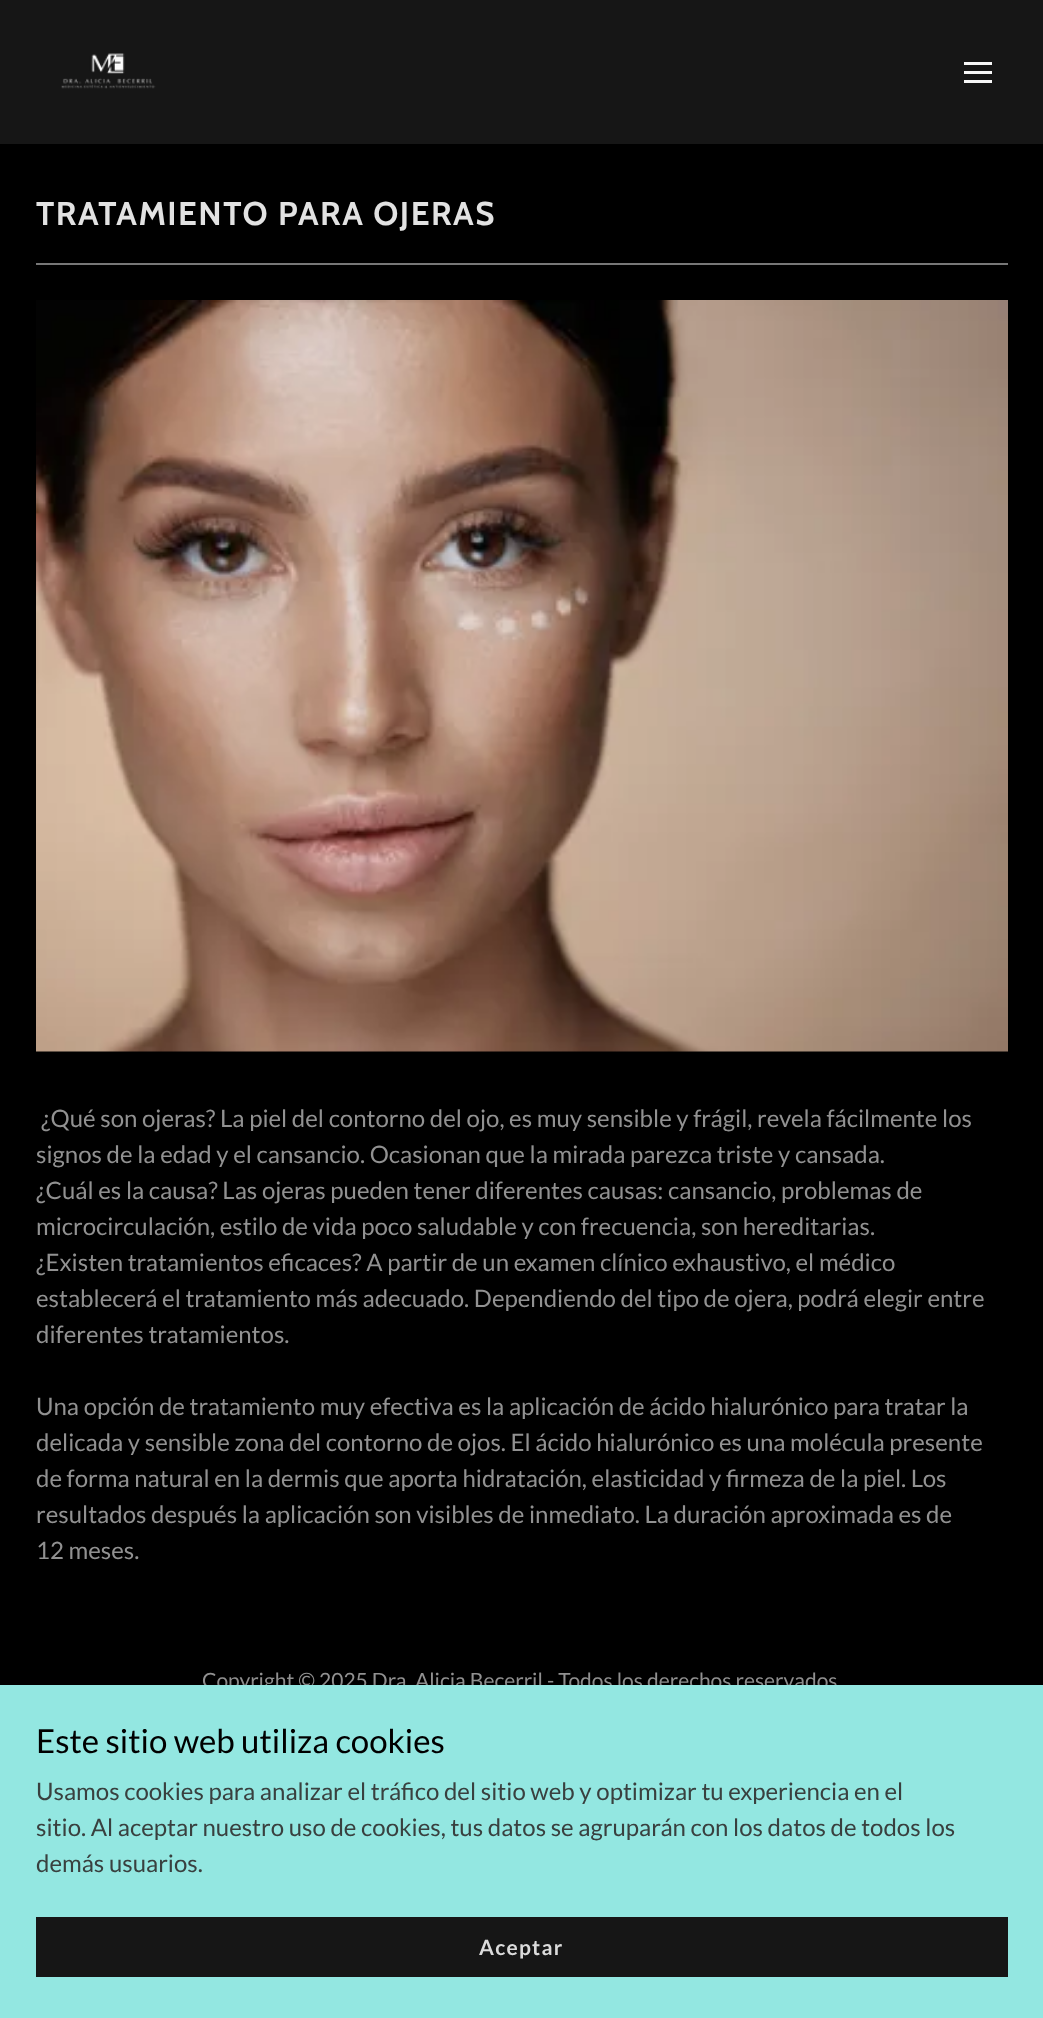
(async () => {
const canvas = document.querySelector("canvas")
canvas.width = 1043
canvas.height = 2018
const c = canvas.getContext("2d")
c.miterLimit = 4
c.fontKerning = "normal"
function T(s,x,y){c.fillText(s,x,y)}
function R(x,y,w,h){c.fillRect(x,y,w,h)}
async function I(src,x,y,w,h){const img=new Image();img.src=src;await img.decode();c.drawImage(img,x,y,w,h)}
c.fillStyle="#000"
R(0,0,1043,2018)
c.fillStyle="#161616"
R(0,0,1043,144)
await I("1.png",61,53,95,36)
c.fillStyle="#f7f7f7"
R(964,62,28,3)
R(964,71,28,3)
R(964,80,28,3)
c.letterSpacing="1.5px"
c.font="bold 33px Cabin"
c.fillStyle="#e2e2e2"
T("TRATAMIENTO PARA OJERAS",36,225)
c.fillStyle="#777"
R(36,263,972,2)
await I("2.png",36,300,972,752)
c.letterSpacing="0px"
c.font="24px Lato"
c.fillStyle="#919191"
T("¿Qué son ojeras? La piel del contorno del ojo, es muy sensible y frágil, revela fácilmente los",41,1127)
T("signos de la edad y el cansancio. Ocasionan que la mirada parezca triste y cansada.",36,1163)
T("¿Cuál es la causa? Las ojeras pueden tener diferentes causas: cansancio, problemas de",36,1199)
T("microcirculación, estilo de vida poco saludable y con frecuencia, son hereditarias.",36,1235)
T("¿Existen tratamientos eficaces? A partir de un examen clínico exhaustivo, el médico",36,1271)
T("establecerá el tratamiento más adecuado. Dependiendo del tipo de ojera, podrá elegir entre",36,1307)
T("diferentes tratamientos.",36,1343)
T("Una opción de tratamiento muy efectiva es la aplicación de ácido hialurónico para tratar la",36,1415)
T("delicada y sensible zona del contorno de ojos. El ácido hialurónico es una molécula presente",36,1451)
T("de forma natural en la dermis que aporta hidratación, elasticidad y firmeza de la piel. Los",36,1487)
T("resultados después la aplicación son visibles de inmediato. La duración aproximada es de",36,1523)
T("12 meses.",36,1559)
c.font="21px Lato"
T("Copyright © 2025 Dra. Alicia Becerril - Todos los derechos reservados",202,1688)
c.fillStyle="#0000004d"
c.filter="blur(4.5px)"
c.beginPath()
c.rect(0,1688,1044,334)
c.fill()
c.filter="none"
c.fillStyle="#93e7e1"
R(0,1685,1043,333)
c.font="33px Lato"
c.fillStyle="#000"
T("Este sitio web utiliza cookies",36,1753)
c.font="24px Lato"
c.fillStyle="#39403f"
T("Usamos cookies para analizar el tráfico del sitio web y optimizar tu experiencia en el",36,1800)
T("sitio. Al aceptar nuestro uso de cookies, tus datos se agruparán con los datos de todos los",36,1836)
T("demás usuarios.",36,1872)
c.fillStyle="#161616"
R(36,1917,972,60)
c.letterSpacing="1.25px"
c.font="bold 21px Lato"
c.fillStyle="#dbdbdb"
T("Aceptar",479,1955)
})()
